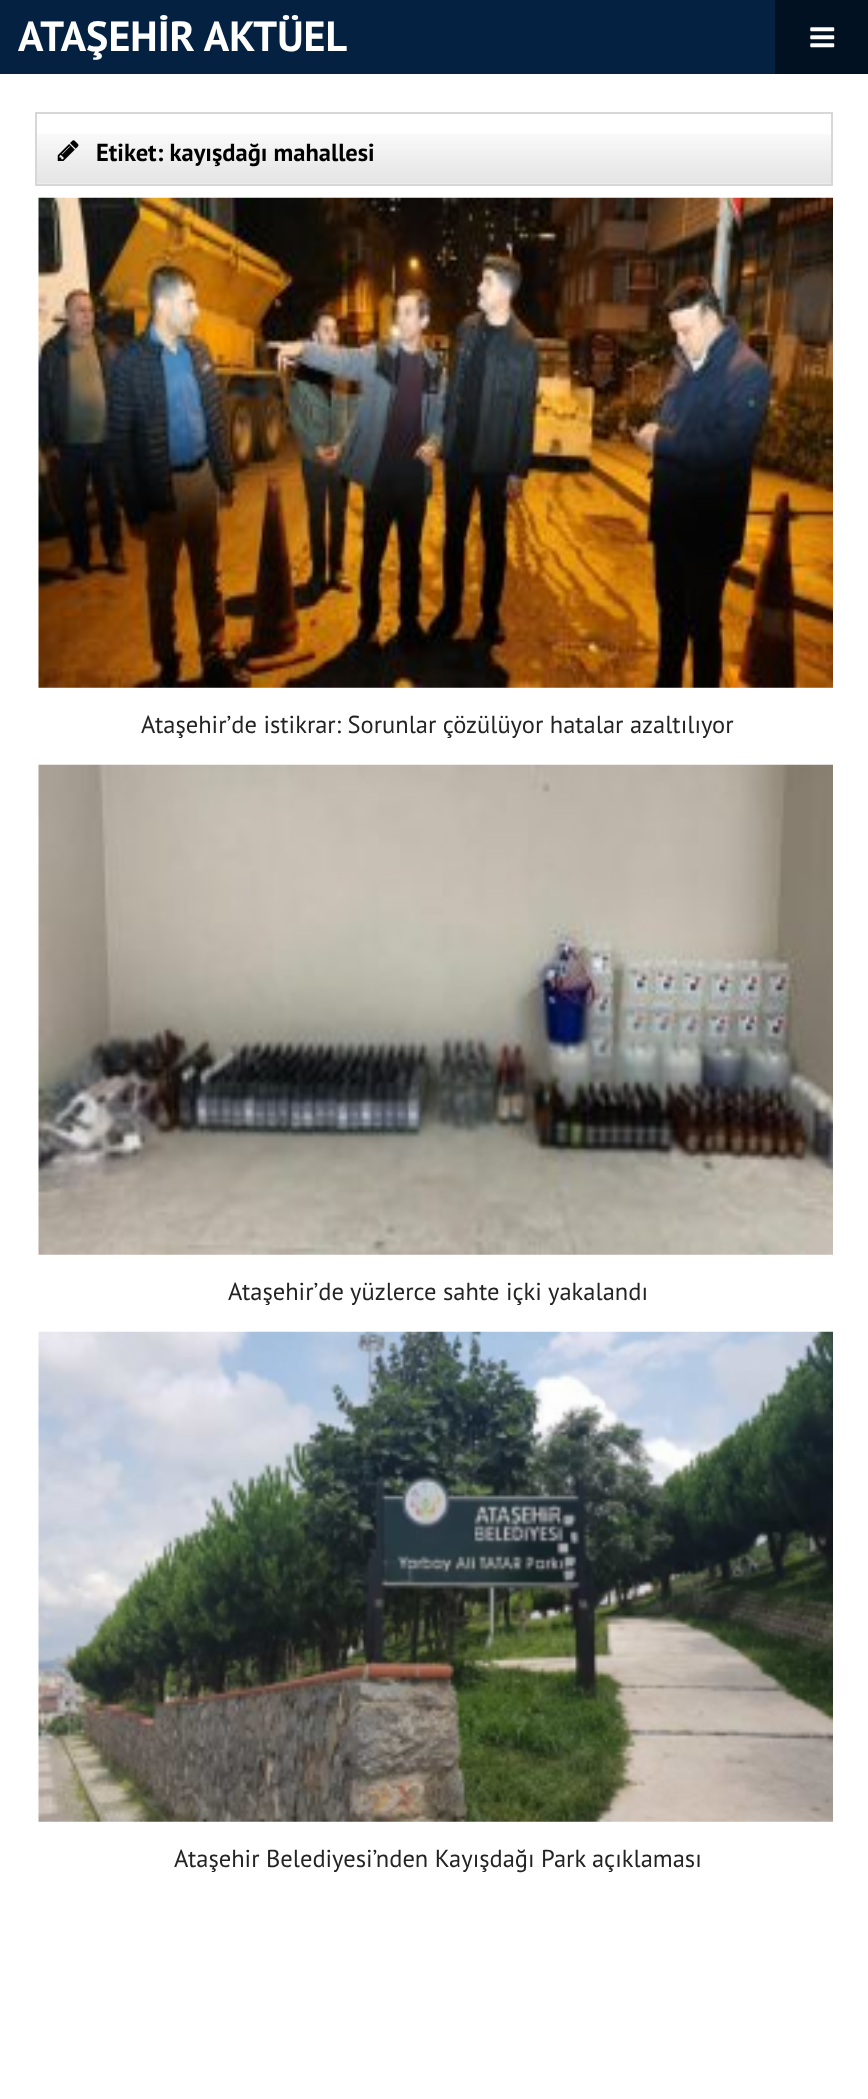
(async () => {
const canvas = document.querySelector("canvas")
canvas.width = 868
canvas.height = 2099
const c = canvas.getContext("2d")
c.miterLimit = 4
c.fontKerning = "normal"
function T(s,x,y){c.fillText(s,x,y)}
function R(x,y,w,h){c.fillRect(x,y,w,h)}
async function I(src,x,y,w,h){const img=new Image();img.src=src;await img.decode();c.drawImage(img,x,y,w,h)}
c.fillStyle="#fff"
R(0,0,868,2099)
c.fillStyle="#042141"
R(0,0,775,74)
c.font="bold 42px PT Sans"
c.fillStyle="#fff"
T("ATAŞEHİR AKTÜEL",18,51)
c.fillStyle="#021121"
R(775,0,93,74)
await I("1.png",810,27,25,21)
await I("2.png",37,134,794,50)
c.strokeStyle="#d7d7d7"
c.lineWidth=2
c.strokeRect(36,113,796,72)
await I("3.png",57,140,22,21)
c.font="bold 24.5px PT Sans"
c.fillStyle="#000"
T("Etiket: kayışdağı mahallesi",96,161)
await I("4.png",38,197,795,491)
c.font="24.5px PT Sans"
c.fillStyle="#232323"
T("Ataşehir’de istikrar: Sorunlar çözülüyor hatalar azaltılıyor",141,733)
await I("5.png",38,764,795,491)
T("Ataşehir’de yüzlerce sahte içki yakalandı",228,1300)
await I("6.png",38,1331,795,491)
T("Ataşehir Belediyesi’nden Kayışdağı Park açıklaması",174,1867)
})()
